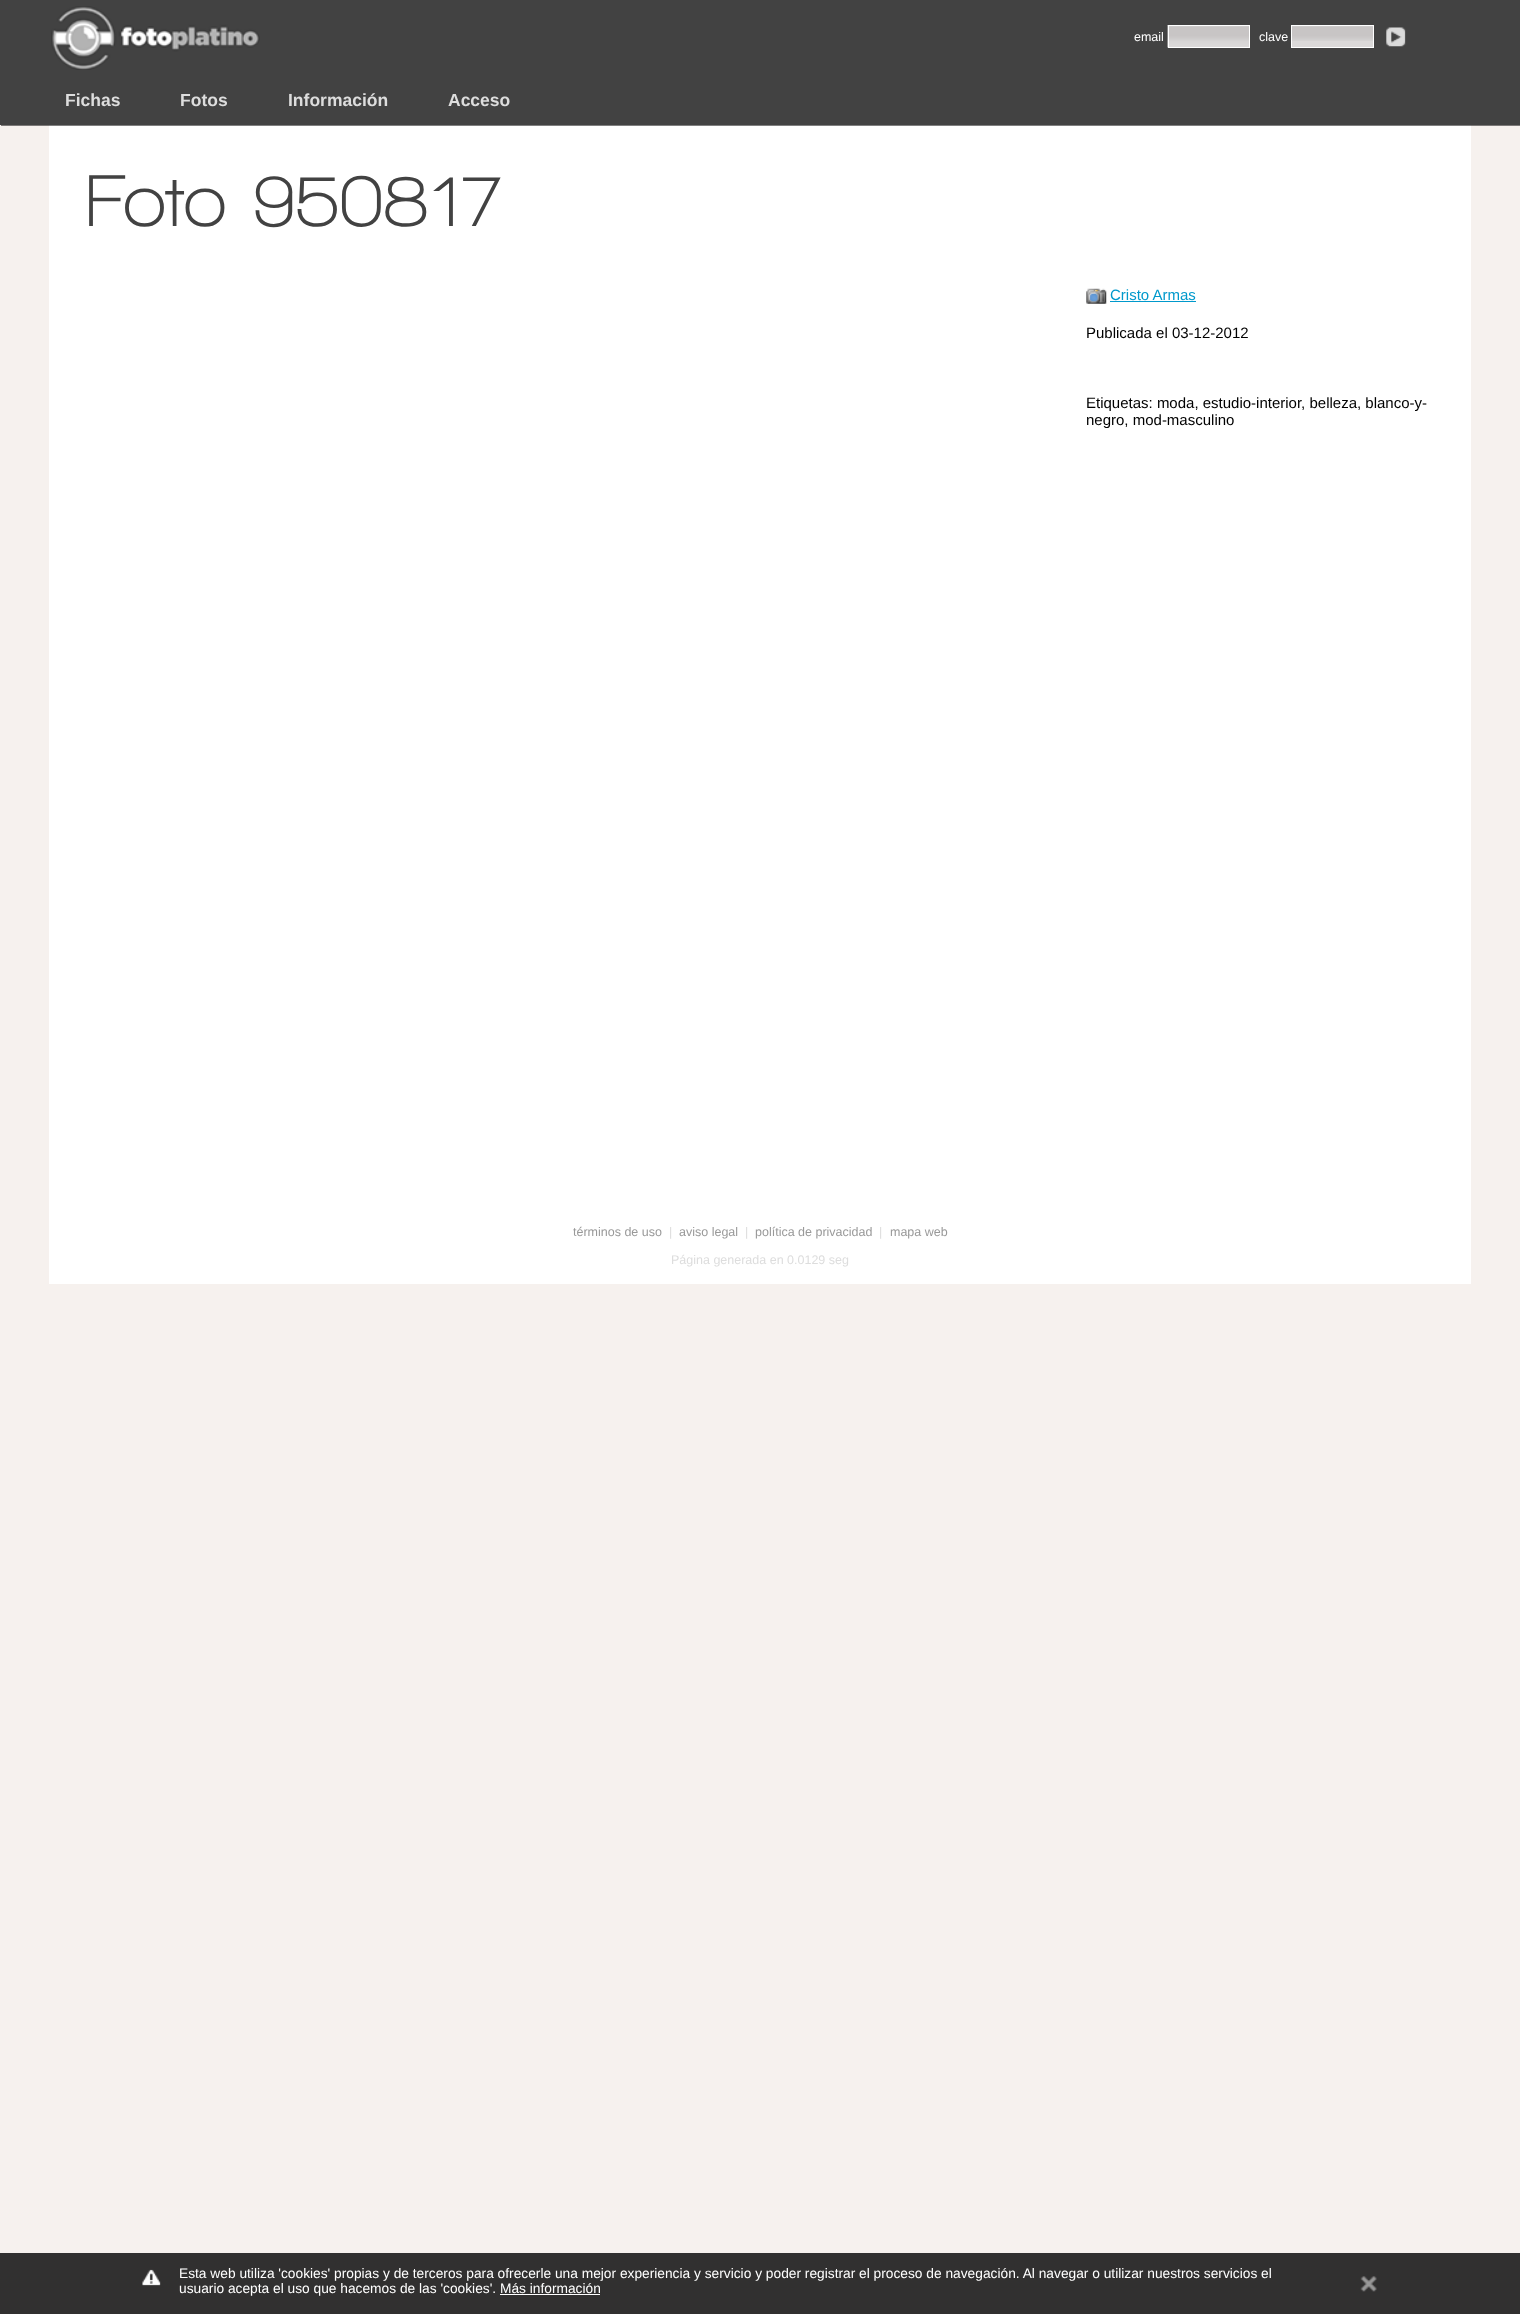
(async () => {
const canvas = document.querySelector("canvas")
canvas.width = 1520
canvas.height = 2314
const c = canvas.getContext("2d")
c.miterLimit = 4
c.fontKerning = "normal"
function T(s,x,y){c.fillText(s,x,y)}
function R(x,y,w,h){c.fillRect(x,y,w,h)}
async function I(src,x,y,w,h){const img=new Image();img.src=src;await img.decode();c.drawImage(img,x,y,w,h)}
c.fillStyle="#f6f1ee"
R(0,0,1520,2314)
c.fillStyle="#424242"
R(0,0,1520,75)
await I("1.png",51,6,209,64)
c.font="12.5px Liberation Sans"
c.fillStyle="#fff"
T("email",1134,41)
await I("2.png",1167,25,82,23)
c.strokeStyle="#fff"
c.strokeRect(1168.5,25.5,81,22)
T("clave",1259,41)
c.fillStyle="#dbd9d9"
R(1292,41,81,6)
await I("3.png",1292,26,81,15)
c.strokeRect(1291.5,25.5,82,22)
await I("4.png",1386,27,20,20)
c.fillStyle="#fff"
R(49,125,1422,1159)
c.fillStyle="#00000080"
c.filter="blur(0.5px)"
c.beginPath()
c.rect(1,76,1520,50)
c.fill()
c.filter="none"
c.fillStyle="#424242"
R(0,75,1520,50)
c.font="bold 17.5px Liberation Sans"
c.fillStyle="#ddd"
T("Fichas",65,106)
T("Fotos",180,106)
T("Información",288,106)
T("Acceso",448,106)
c.font="bold 75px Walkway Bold"
c.fillStyle="#424242"
T("Foto 950817",86,226)
await I("5.png",1086,288,21,16)
c.font="15px Liberation Sans"
c.fillStyle="#09c"
T("Cristo Armas",1110,300)
R(1110,301,86,1)
c.fillStyle="#000"
T("Publicada el 03-12-2012",1086,338)
T("Etiquetas: moda, estudio-interior, belleza, blanco-y-",1086,408)
T("negro, mod-masculino",1086,425)
c.font="12.5px Liberation Sans"
c.fillStyle="#999"
T("términos de uso",573,1236)
c.fillStyle="#ddd"
T("|",669,1236)
c.fillStyle="#999"
T("aviso legal",679,1236)
c.fillStyle="#ddd"
T("|",745,1236)
c.fillStyle="#999"
T("política de privacidad",755,1236)
c.fillStyle="#ddd"
T("|",879,1236)
c.fillStyle="#999"
T("mapa web",890,1236)
c.fillStyle="#ddd"
T("Página generada en 0.0129 seg",671,1264)
c.fillStyle="#313030"
R(0,2253,1520,61)
await I("6.png",142,2269,19,17)
c.font="13.75px Liberation Sans"
c.fillStyle="#fff"
T("Esta web utiliza 'cookies' propias y de terceros para ofrecerle una mejor experiencia y servicio y poder registrar el proceso de navegación. Al navegar o utilizar nuestros servicios el",179,2278)
T("usuario acepta el uso que hacemos de las 'cookies'. Más información",179,2293)
await I("7.png",1360,2276,17,16)
R(500,2294,100,1)
})()
